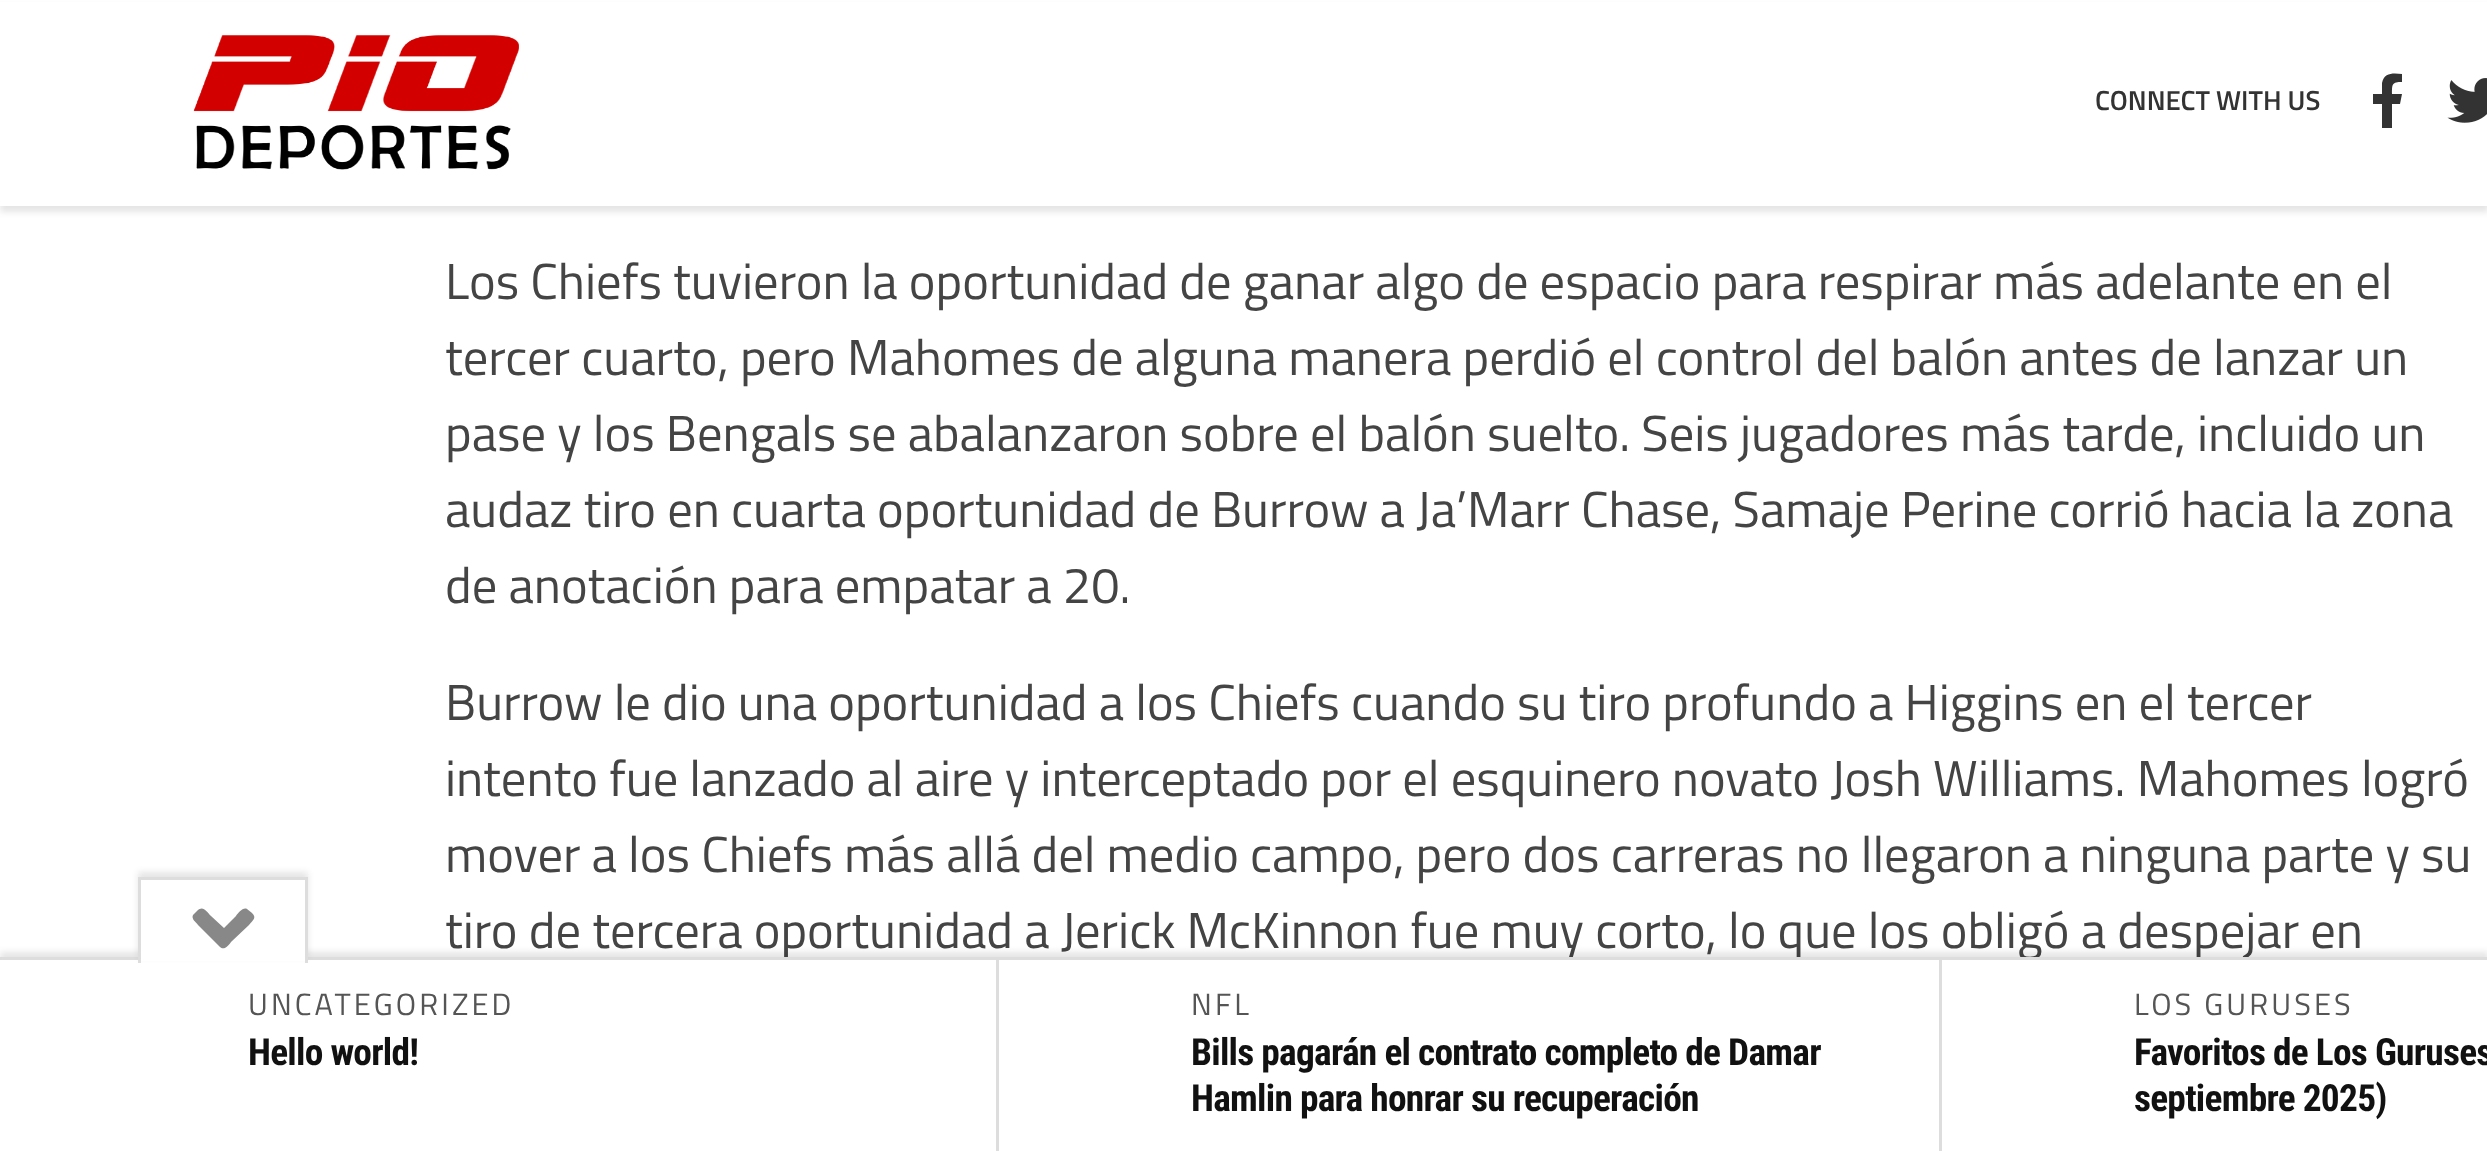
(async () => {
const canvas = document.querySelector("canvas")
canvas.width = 2487
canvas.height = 1151
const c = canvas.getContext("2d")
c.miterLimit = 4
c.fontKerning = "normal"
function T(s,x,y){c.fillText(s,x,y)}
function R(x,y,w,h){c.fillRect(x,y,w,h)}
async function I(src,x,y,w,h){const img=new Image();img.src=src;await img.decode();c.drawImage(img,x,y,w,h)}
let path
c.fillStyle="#fff"
R(0,0,2487,1151)
c.fillStyle="#0000001a"
c.filter="blur(3px)"
c.beginPath()
c.rect(0,6,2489,206)
c.fill()
c.filter="none"
c.fillStyle="#fff"
R(0,2,2487,204)
await I("1.png",193,35,326,135)
c.font="600 27.5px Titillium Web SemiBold"
c.fillStyle="#333"
T("CONNECT WITH US",2095,110)
path = new Path2D("M2400 104h-8v24h-10v-24h-9v-10h9v-11c2-11 12-10 20-9v8c-10 0-10 2-10 12h10z")
c.fill(path)
await I("2.png",2447,78,40,45)
c.font="50.6px Titillium Web"
c.fillStyle="#444"
T("Los Chiefs tuvieron la oportunidad de ganar algo de espacio para respirar más adelante en el",445,299)
T("tercer cuarto, pero Mahomes de alguna manera perdió el control del balón antes de lanzar un",445,375)
T("pase y los Bengals se abalanzaron sobre el balón suelto. Seis jugadores más tarde, incluido un",445,451)
T("audaz tiro en cuarta oportunidad de Burrow a Ja’Marr Chase, Samaje Perine corrió hacia la zona",445,527)
T("de anotación para empatar a 20.",445,603)
T("Burrow le dio una oportunidad a los Chiefs cuando su tiro profundo a Higgins en el tercer",445,720)
T("intento fue lanzado al aire y interceptado por el esquinero novato Josh Williams. Mahomes logró",445,796)
T("mover a los Chiefs más allá del medio campo, pero dos carreras no llegaron a ninguna parte y su",445,872)
T("tiro de tercera oportunidad a Jerick McKinnon fue muy corto, lo que los obligó a despejar en",445,948)
c.fillStyle="#0000001a"
c.filter="blur(3px)"
c.beginPath()
c.rect(0,952,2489,195)
c.fill()
c.filter="none"
c.fillStyle="#fff"
R(0,960,2487,191)
c.fillStyle="#ddd"
R(0,957,2487,3)
c.fillStyle="#0000001a"
c.filter="blur(3px)"
c.beginPath()
c.rect(138,872,170,85)
c.fill()
c.filter="none"
c.fillStyle="#fff"
R(141,880,164,81)
c.fillStyle="#ddd"
R(138,877,170,3)
R(305,877,3,86)
R(138,877,3,86)
c.fillStyle="#888"
path = new Path2D("M220 947l-22-22c-2-3-7-6-5-10l4-4c6-6 9 0 14 5l13 12l12-12c2-3 7-9 11-7l5 4c5 5 1 7-3 12l-18 17c-2 3-7 9-11 5z")
c.fill(path)
c.letterSpacing="3.1px"
c.font="30.75px Titillium Web"
c.fillStyle="#555"
T("UNCATEGORIZED",248,1015)
c.letterSpacing="-0.75px"
c.font="bold 37.4px Roboto Condensed"
c.fillStyle="#111"
T("Hello world!",248,1065)
c.fillStyle="#ddd"
R(996,960,3,191)
c.letterSpacing="3.1px"
c.font="30.75px Titillium Web"
c.fillStyle="#555"
T("NFL",1191,1015)
c.letterSpacing="-0.75px"
c.font="bold 37.4px Roboto Condensed"
c.fillStyle="#111"
T("Bills pagarán el contrato completo de Damar",1191,1065)
T("Hamlin para honrar su recuperación",1191,1111)
c.fillStyle="#ddd"
R(1939,960,3,191)
c.letterSpacing="3.1px"
c.font="30.75px Titillium Web"
c.fillStyle="#555"
T("LOS GURUSES",2134,1015)
c.letterSpacing="-0.75px"
c.font="bold 37.4px Roboto Condensed"
c.fillStyle="#111"
T("Favoritos de Los Guruses",2134,1065)
T("septiembre 2025)",2134,1111)
})()
